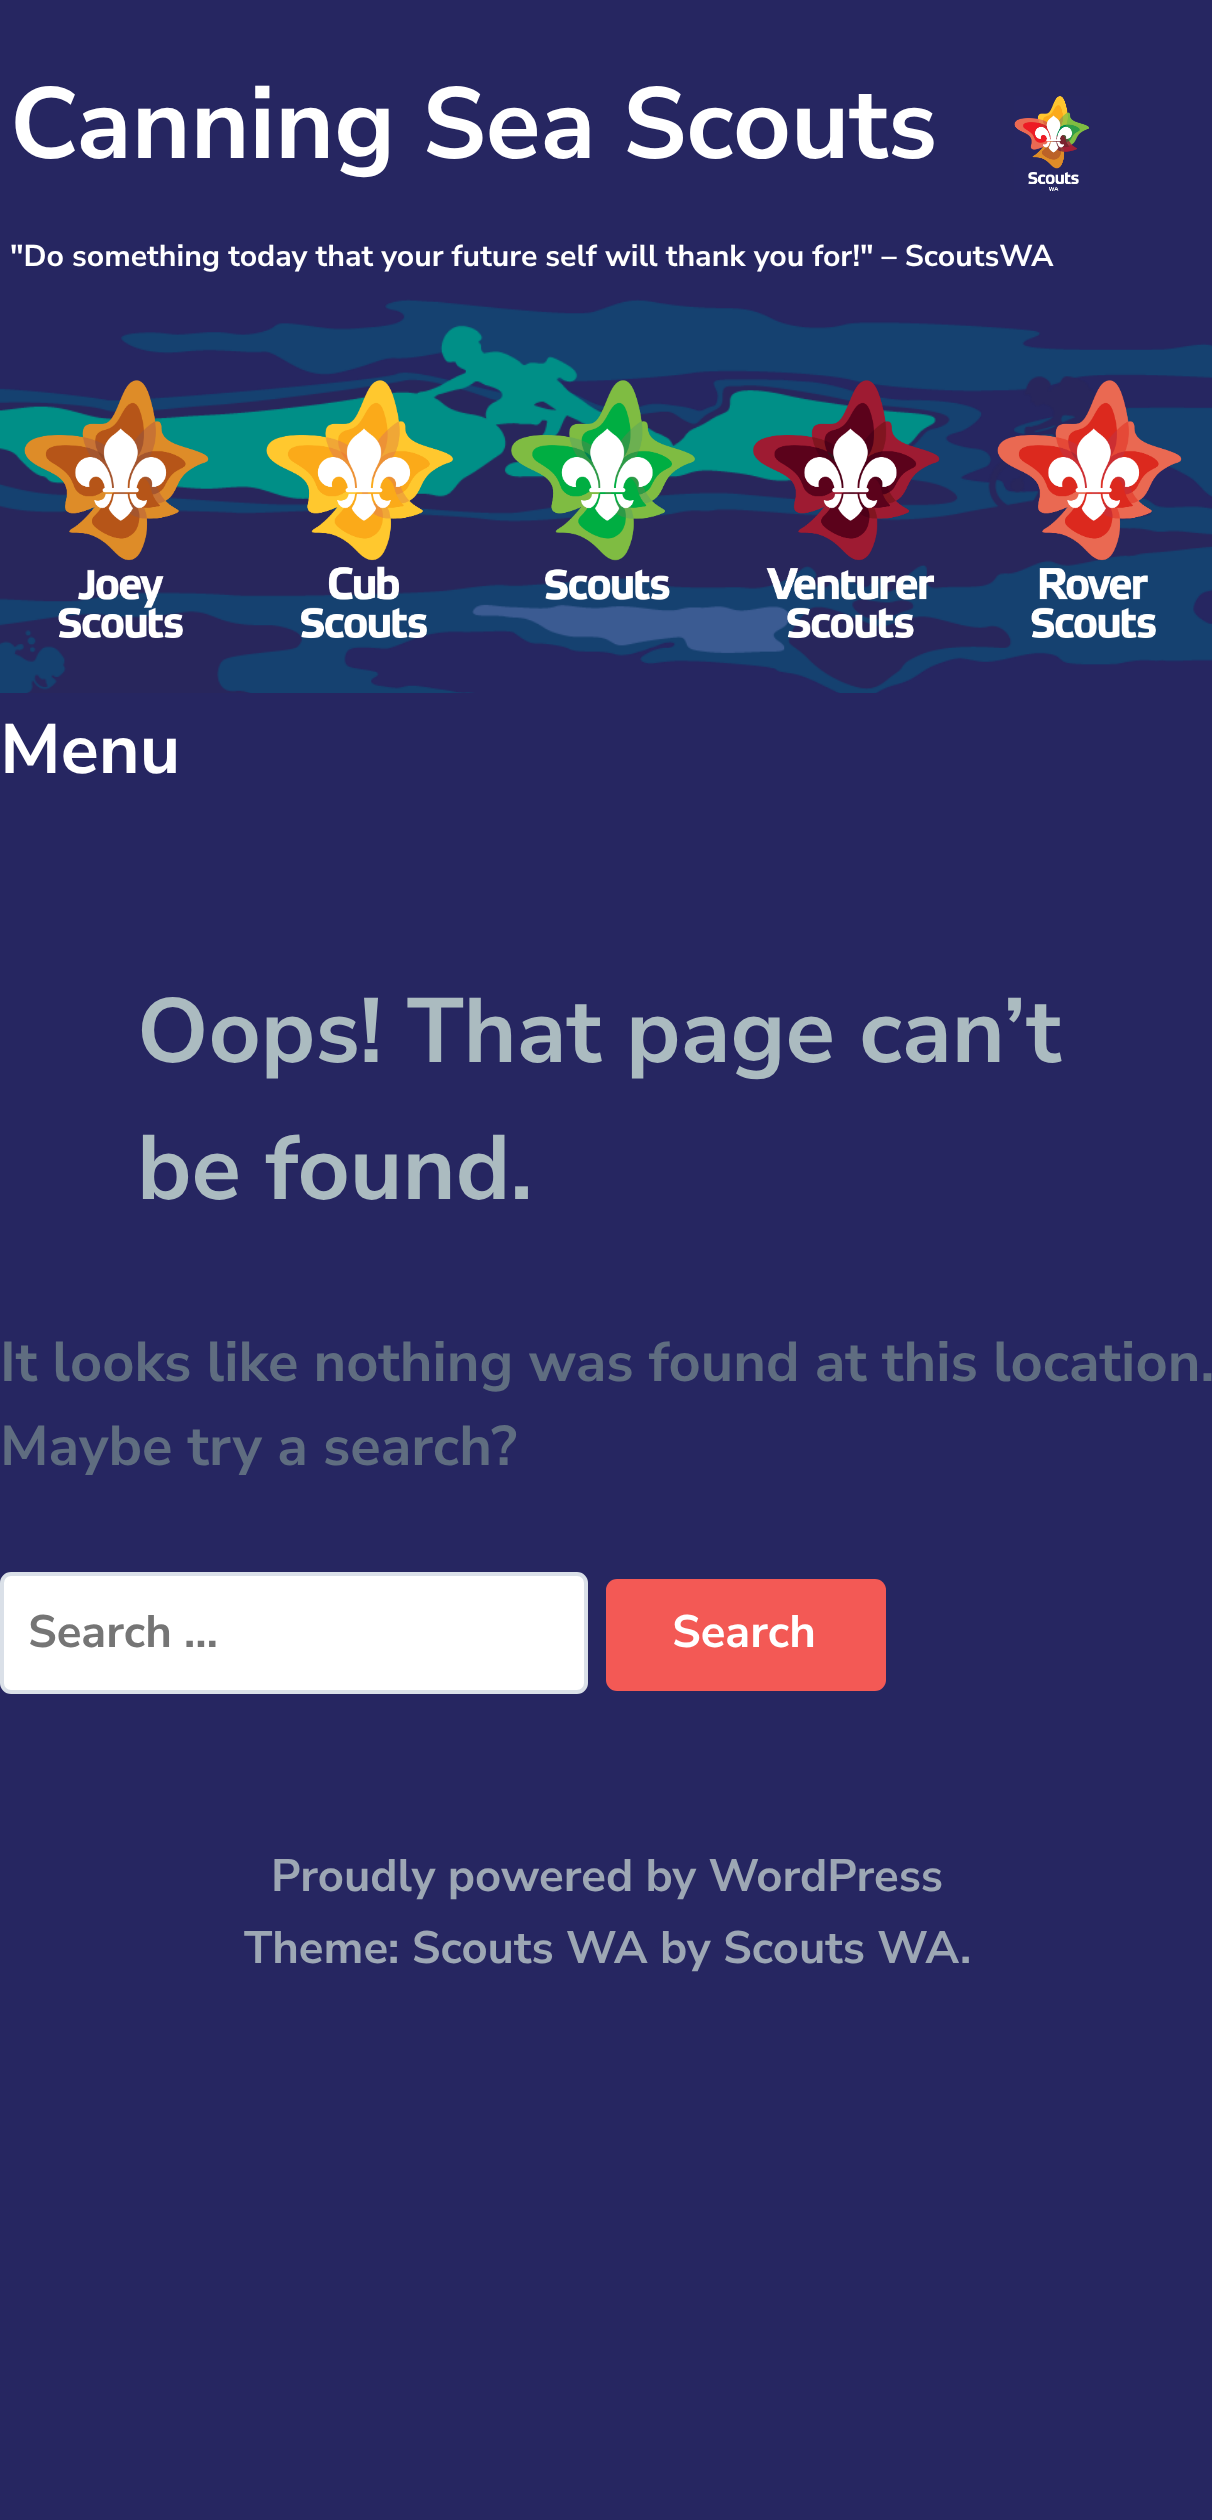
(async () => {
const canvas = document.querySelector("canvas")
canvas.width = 1212
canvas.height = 2520
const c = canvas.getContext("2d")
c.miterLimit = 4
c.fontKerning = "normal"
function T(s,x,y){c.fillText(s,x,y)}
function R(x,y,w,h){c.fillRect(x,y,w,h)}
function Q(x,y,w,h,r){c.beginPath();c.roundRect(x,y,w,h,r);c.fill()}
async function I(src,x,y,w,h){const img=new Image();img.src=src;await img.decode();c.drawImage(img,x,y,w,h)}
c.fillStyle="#262661"
R(0,0,1212,2520)
await I("1.png",0,299,1212,394)
c.font="200 100.75px Nunito Sans"
c.fillStyle="#fff"
T("Canning Sea Scouts",10,158)
await I("2.png",1014,96,75,95)
c.wordSpacing="-0.1px"
c.font="200 30.25px Nunito Sans"
T("\"Do something today that your future self will thank you for!\" – ScoutsWA",10,266)
await I("3.png",24,380,185,259)
await I("4.png",266,380,188,259)
await I("5.png",511,380,184,221)
await I("6.png",753,380,187,259)
await I("7.png",997,380,185,259)
c.wordSpacing="0px"
c.font="200 70px Nunito Sans"
T("Menu",0,773)
c.font="200 91px Nunito Sans"
c.fillStyle="#abbbc0"
T("Oops! That page can’t",137,1062)
T("be found.",137,1199)
c.font="200 56px Nunito Sans"
c.fillStyle="#5f6d80"
T("It looks like nothing was found at this location.",0,1381)
T("Maybe try a search?",0,1465)
c.fillStyle="#fff"
c.beginPath()
c.roundRect(2,1574,584,118,9)
c.fill()
c.strokeStyle="#dae0e8"
c.lineWidth=4
c.stroke()
c.font="200 45.5px Nunito Sans"
c.fillStyle="#757575"
T("Search …",28,1647)
c.fillStyle="#f35955"
Q(606,1579,280,112,11)
c.fillStyle="#fff"
T("Search",672,1647)
c.fillStyle="#9da7b4"
T("Proudly powered by WordPress",271,1891)
T("Theme: Scouts WA by Scouts WA.",244,1963)
})()
